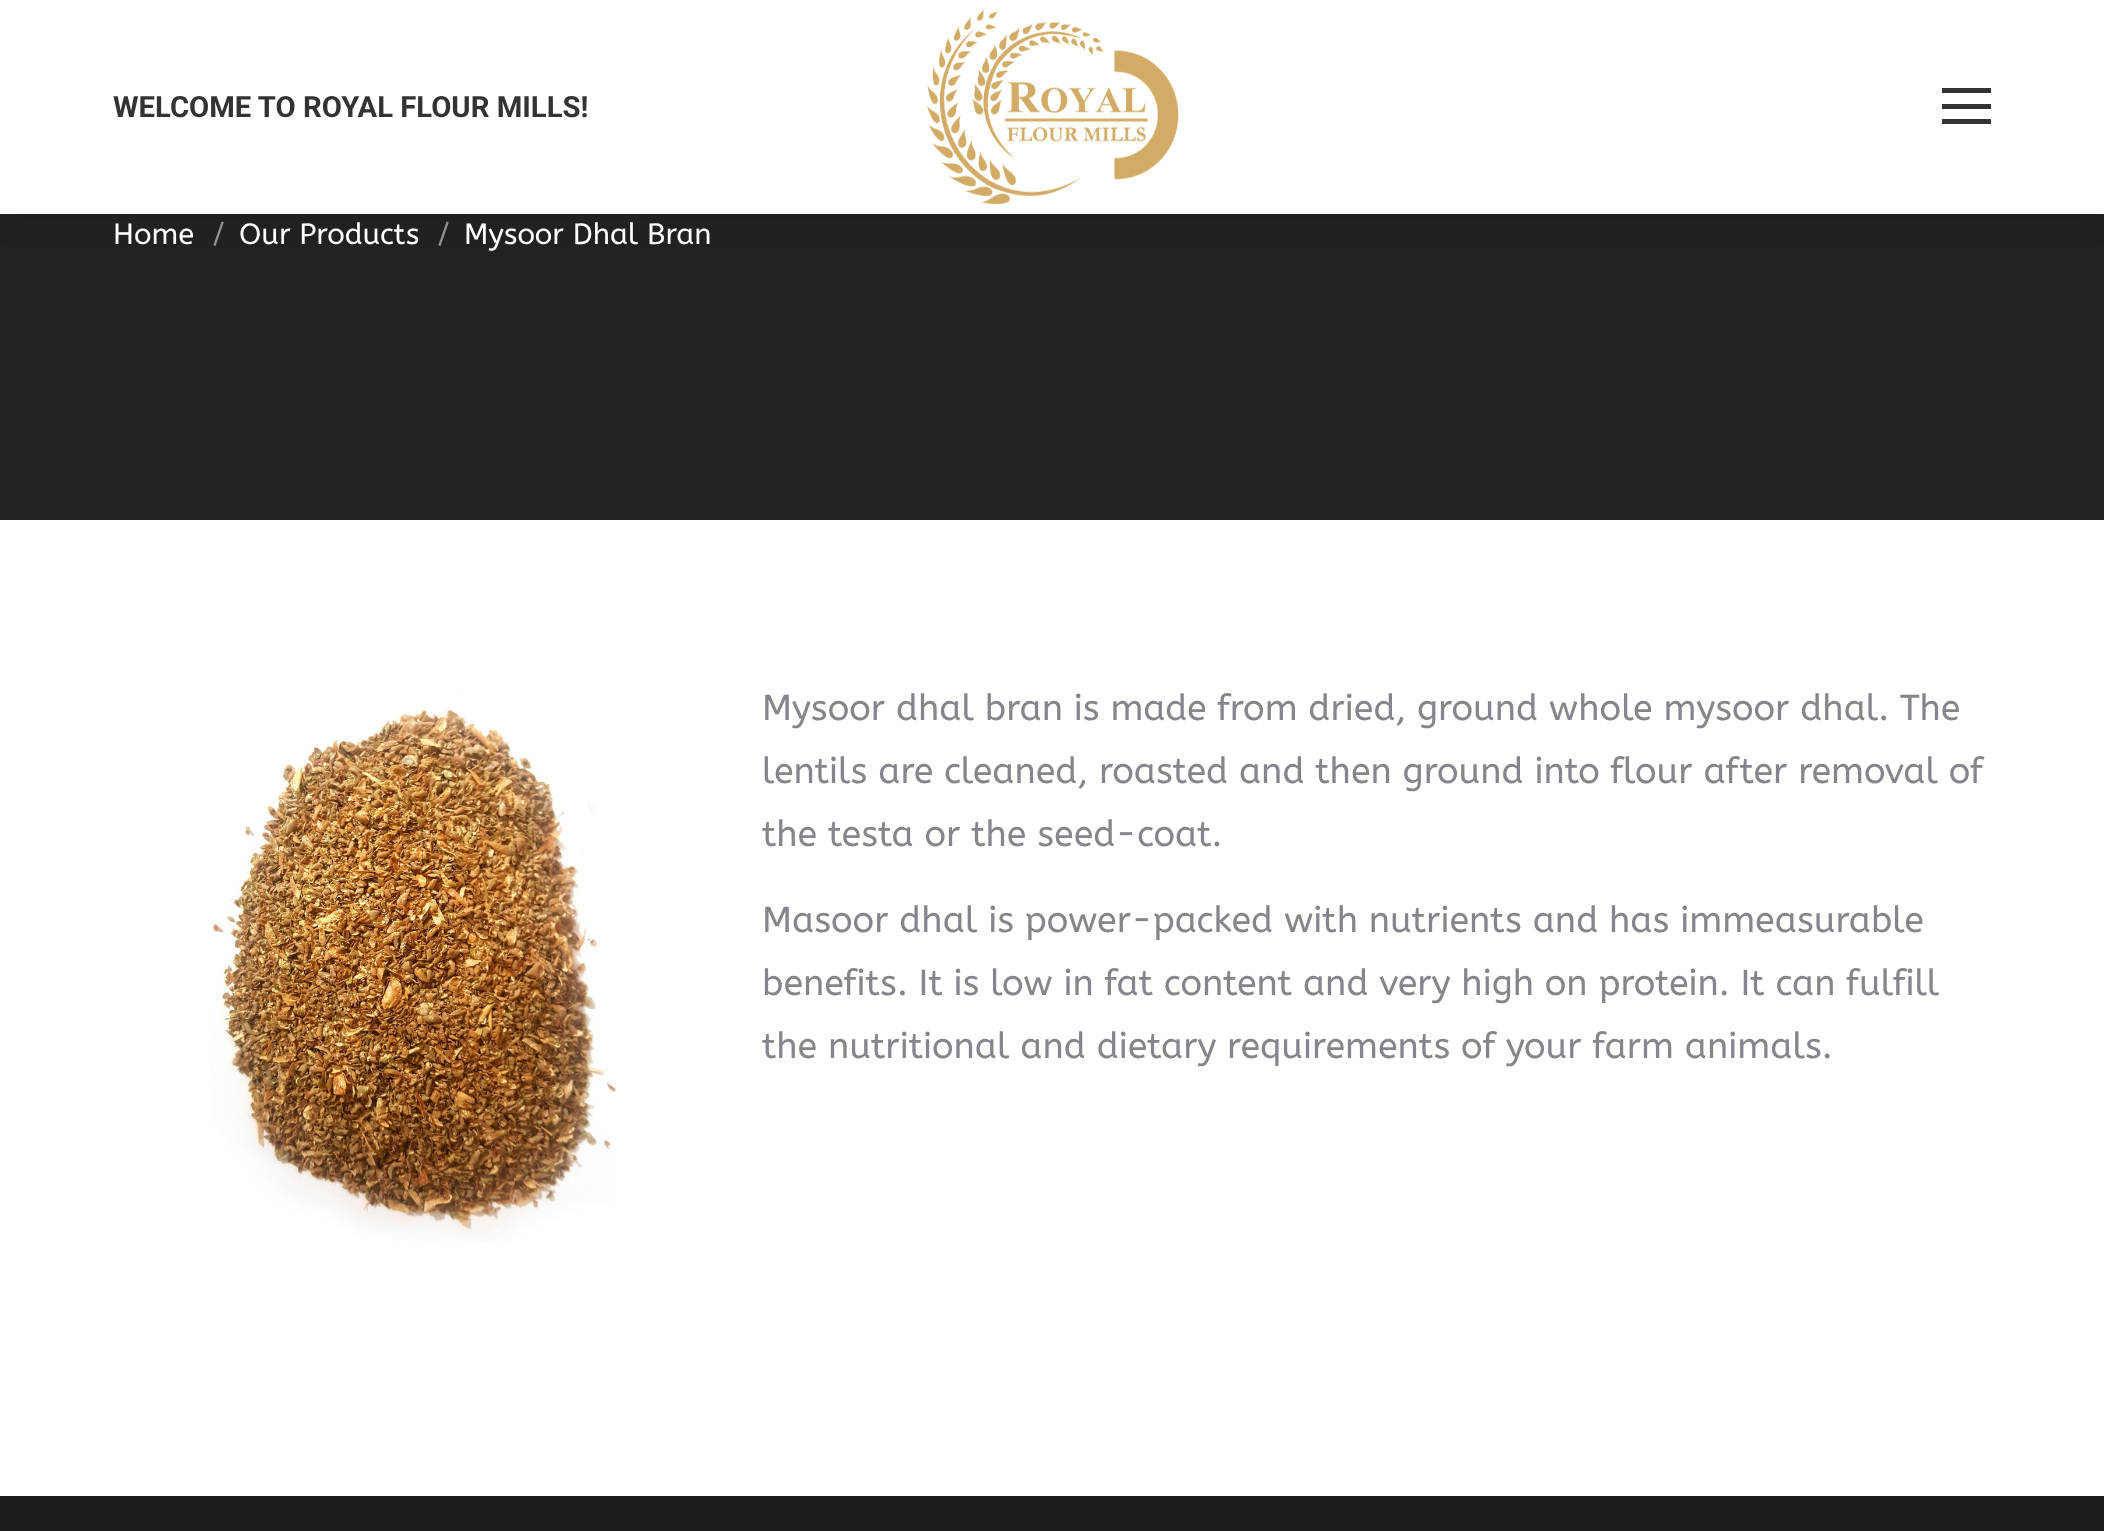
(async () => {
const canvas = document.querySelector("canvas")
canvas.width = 2104
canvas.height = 1531
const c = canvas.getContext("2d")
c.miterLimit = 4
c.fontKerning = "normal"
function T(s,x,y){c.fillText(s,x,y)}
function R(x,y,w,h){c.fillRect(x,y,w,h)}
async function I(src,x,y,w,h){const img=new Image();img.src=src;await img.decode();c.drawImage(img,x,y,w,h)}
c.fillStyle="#fff"
R(0,0,2104,1531)
c.fillStyle="#222"
R(0,214,2104,306)
c.fillStyle="#00000012"
c.filter="blur(17px)"
c.beginPath()
c.rect(-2,-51,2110,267)
c.fill()
c.filter="none"
c.fillStyle="#fff"
R(0,0,2104,214)
c.font="bold 29.25px Roboto"
c.fillStyle="#333"
T("WELCOME TO ROYAL FLOUR MILLS!",113,117)
await I("1.png",926,9,253,196)
R(1942,88,49,5)
R(1942,104,49,5)
R(1942,119,49,5)
c.font="29.25px ABeeZee"
c.fillStyle="#fff"
T("Home",113,244)
c.fillStyle="#919191"
T("/",212,244)
c.fillStyle="#fff"
T("Our Products",239,244)
c.fillStyle="#919191"
T("/",437,244)
c.fillStyle="#fff"
T("Mysoor Dhal Bran",464,244)
await I("2.png",210,694,407,548)
c.font="36px ABeeZee"
c.fillStyle="#85868c"
T("Mysoor dhal bran is made from dried, ground whole mysoor dhal. The",762,720)
T("lentils are cleaned, roasted and then ground into flour after removal of",762,783)
T("the testa or the seed-coat.",762,846)
T("Masoor dhal is power-packed with nutrients and has immeasurable",762,932)
T("benefits. It is low in fat content and very high on protein. It can fulfill",762,995)
T("the nutritional and dietary requirements of your farm animals.",762,1058)
c.fillStyle="#1a1c20"
R(0,1496,2104,35)
})()
